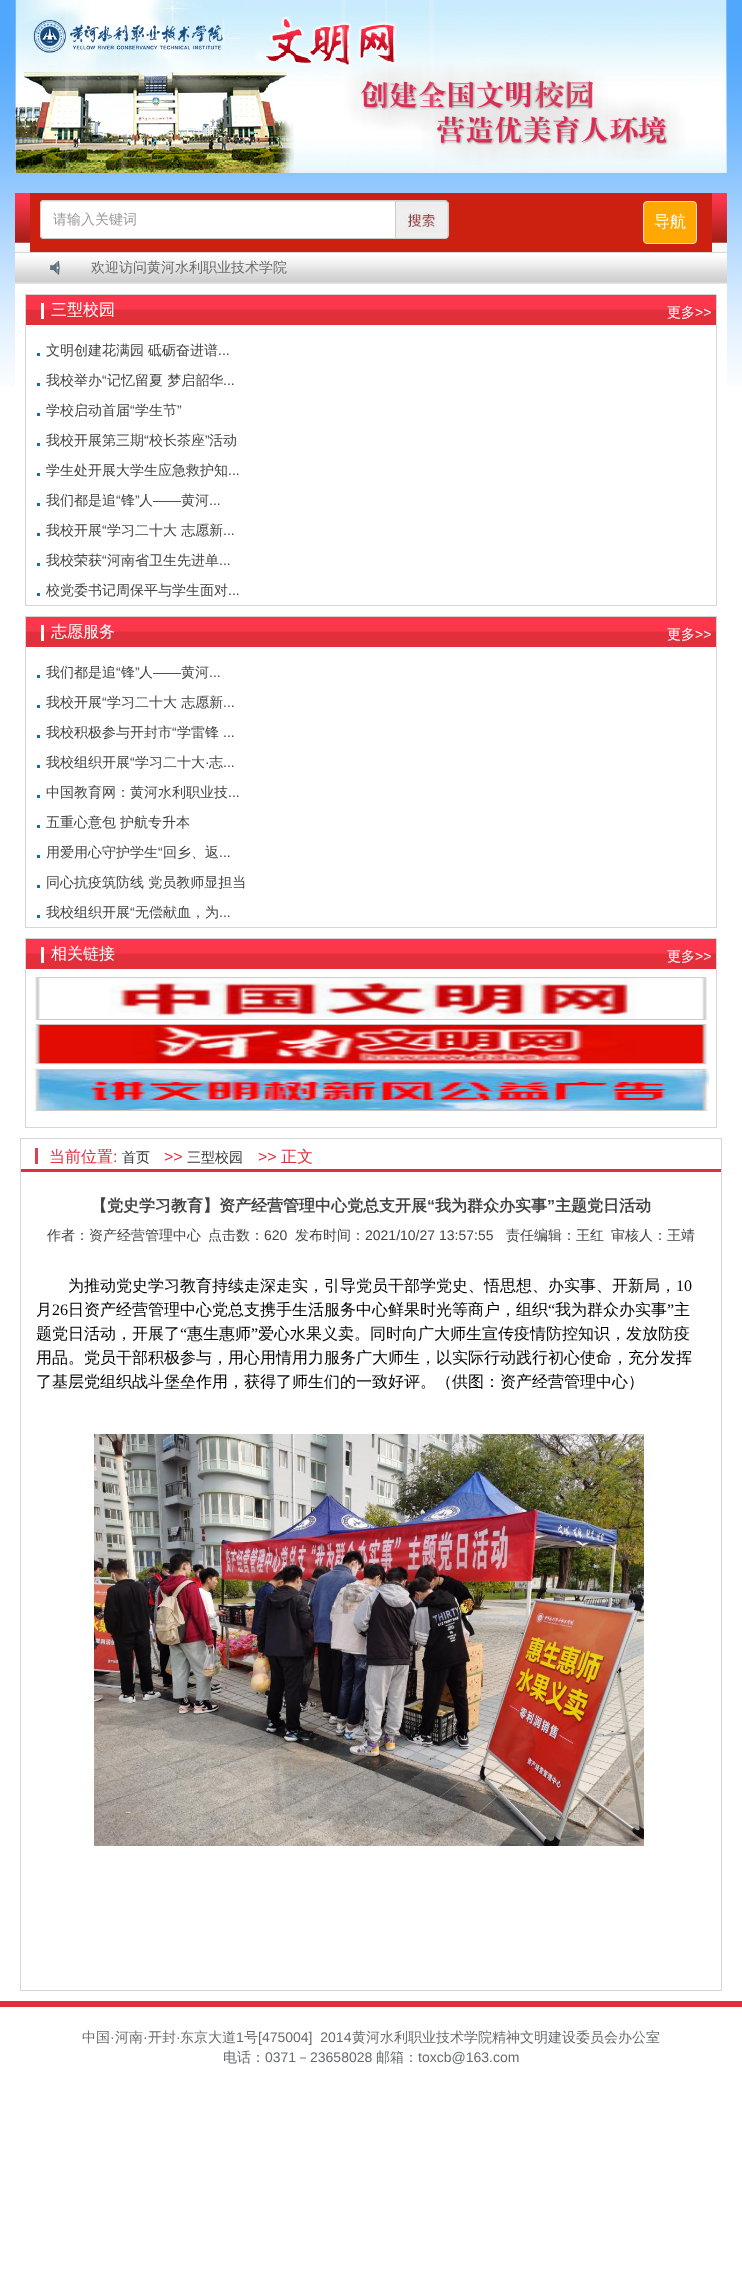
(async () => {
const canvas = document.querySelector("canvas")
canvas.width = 742
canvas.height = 2285
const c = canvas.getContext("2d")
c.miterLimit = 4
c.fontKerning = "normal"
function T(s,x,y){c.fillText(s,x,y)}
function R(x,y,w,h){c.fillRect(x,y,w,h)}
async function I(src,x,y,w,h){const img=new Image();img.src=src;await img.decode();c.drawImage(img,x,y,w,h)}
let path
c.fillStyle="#fff"
R(0,0,742,2285)
await I("1.png",0,0,742,387)
await I("2.png",15,0,712,173)
c.fillStyle="#f8f8f8"
R(15,243,712,9)
await I("3.png",15,193,712,50)
c.fillStyle="#cc2111"
R(30,193,682,59)
c.fillStyle="#fff"
c.beginPath()
c.roundRect(40,200,356,39,[4,0,0,4])
c.fill()
c.fillStyle="#ececec"
path = new Path2D("M44 202h351v-1h-351c-2 0-3 1-3 3v1c0-2 1-3 3-3z")
c.fill(path)
c.beginPath()
c.roundRect(40.5,200.5,355,38,[3.5,0,0,3.5])
c.strokeStyle="#ccc"
c.stroke()
c.font="500 14px WenQuanYi Zen Hei"
c.fillStyle="#999"
T("请输入关键词",53,224)
c.fillStyle="#ccc"
path = new Path2D("M396 200h49c2 0 4 2 4 4v31c0 2-2 4-4 4h-49zm0 1h49c2 0 3 1 3 3v31c0 2-1 3-3 3h-49z")
c.fill(path,"evenodd")
await I("4.png",396,201,52,37)
c.fillStyle="#ffa802"
c.beginPath()
c.roundRect(643.5,201.5,53,42,3.5)
c.fill()
c.strokeStyle="#ddd"
c.stroke()
c.font="500 16px WenQuanYi Zen Hei"
c.fillStyle="#fff"
T("导航",654,227)
await I("5.png",15,252,712,32)
await I("6.png",50,260,10,15)
c.font="500 14px WenQuanYi Zen Hei"
c.fillStyle="#676a6c"
T("欢迎访问黄河水利职业技术学院",91,272)
c.fillStyle="#fff"
R(15,284,712,103)
c.strokeStyle="#d6d6d6"
c.strokeRect(25.5,294.5,691,311)
await I("7.png",26,295,690,30)
c.font="500 16px WenQuanYi Zen Hei"
T("三型校园",51,315)
c.font="500 14px WenQuanYi Zen Hei"
T("更多",667,317)
c.font="14px Liberation Sans"
T(">>",695,317)
c.fillStyle="#096faf"
R(37,353,3,3)
c.font="500 14px WenQuanYi Zen Hei"
c.fillStyle="#434343"
T("文明创建花满园",46,355)
T("砥砺奋进谱",148,355)
c.font="14px Liberation Sans"
T("...",218,355)
c.fillStyle="#096faf"
R(37,383,3,3)
c.font="500 14px WenQuanYi Zen Hei"
c.fillStyle="#434343"
T("我校举办",46,385)
c.font="14px Liberation Sans"
T("“",102,385)
c.font="500 14px WenQuanYi Zen Hei"
T("记忆留夏 梦启韶华",107,385)
c.font="14px Liberation Sans"
T("...",223,385)
c.fillStyle="#096faf"
R(37,413,3,3)
c.font="500 14px WenQuanYi Zen Hei"
c.fillStyle="#434343"
T("学校启动首届",46,415)
c.font="14px Liberation Sans"
T("“",130,415)
c.font="500 14px WenQuanYi Zen Hei"
T("学生节",135,415)
c.font="14px Liberation Sans"
T("”",177,415)
c.fillStyle="#096faf"
R(37,443,3,3)
c.font="500 14px WenQuanYi Zen Hei"
c.fillStyle="#434343"
T("我校开展第三期",46,445)
c.font="14px Liberation Sans"
T("“",144,445)
c.font="500 14px WenQuanYi Zen Hei"
T("校长茶座",149,445)
c.font="14px Liberation Sans"
T("”",205,445)
c.font="500 14px WenQuanYi Zen Hei"
T("活动",209,445)
c.fillStyle="#096faf"
R(37,473,3,3)
c.fillStyle="#434343"
T("学生处开展大学生应急救护知",46,475)
c.font="14px Liberation Sans"
T("...",228,475)
c.fillStyle="#096faf"
R(37,503,3,3)
c.font="500 14px WenQuanYi Zen Hei"
c.fillStyle="#434343"
T("我们都是追",46,505)
c.font="14px Liberation Sans"
T("“",116,505)
c.font="500 14px WenQuanYi Zen Hei"
T("锋",121,505)
c.font="14px Liberation Sans"
T("”",135,505)
c.font="500 14px WenQuanYi Zen Hei"
T("人",139,505)
c.font="14px Liberation Sans"
T("——",153,505)
c.font="500 14px WenQuanYi Zen Hei"
T("黄河",181,505)
c.font="14px Liberation Sans"
T("...",209,505)
c.fillStyle="#096faf"
R(37,533,3,3)
c.font="500 14px WenQuanYi Zen Hei"
c.fillStyle="#434343"
T("我校开展",46,535)
c.font="14px Liberation Sans"
T("“",102,535)
c.font="500 14px WenQuanYi Zen Hei"
T("学习二十大 志愿新",107,535)
c.font="14px Liberation Sans"
T("...",223,535)
c.fillStyle="#096faf"
R(37,563,3,3)
c.font="500 14px WenQuanYi Zen Hei"
c.fillStyle="#434343"
T("我校荣获",46,565)
c.font="14px Liberation Sans"
T("“",102,565)
c.font="500 14px WenQuanYi Zen Hei"
T("河南省卫生先进单",107,565)
c.font="14px Liberation Sans"
T("...",219,565)
c.fillStyle="#096faf"
R(37,593,3,3)
c.font="500 14px WenQuanYi Zen Hei"
c.fillStyle="#434343"
T("校党委书记周保平与学生面对",46,595)
c.font="14px Liberation Sans"
T("...",228,595)
c.strokeRect(25.5,616.5,691,311)
await I("7.png",26,617,690,30)
c.font="500 16px WenQuanYi Zen Hei"
c.fillStyle="#fff"
T("志愿服务",51,637)
c.font="500 14px WenQuanYi Zen Hei"
T("更多",667,639)
c.font="14px Liberation Sans"
T(">>",695,639)
c.fillStyle="#096faf"
R(37,675,3,3)
c.font="500 14px WenQuanYi Zen Hei"
c.fillStyle="#434343"
T("我们都是追",46,677)
c.font="14px Liberation Sans"
T("“",116,677)
c.font="500 14px WenQuanYi Zen Hei"
T("锋",121,677)
c.font="14px Liberation Sans"
T("”",135,677)
c.font="500 14px WenQuanYi Zen Hei"
T("人",139,677)
c.font="14px Liberation Sans"
T("——",153,677)
c.font="500 14px WenQuanYi Zen Hei"
T("黄河",181,677)
c.font="14px Liberation Sans"
T("...",209,677)
c.fillStyle="#096faf"
R(37,705,3,3)
c.font="500 14px WenQuanYi Zen Hei"
c.fillStyle="#434343"
T("我校开展",46,707)
c.font="14px Liberation Sans"
T("“",102,707)
c.font="500 14px WenQuanYi Zen Hei"
T("学习二十大 志愿新",107,707)
c.font="14px Liberation Sans"
T("...",223,707)
c.fillStyle="#096faf"
R(37,735,3,3)
c.font="500 14px WenQuanYi Zen Hei"
c.fillStyle="#434343"
T("我校积极参与开封市",46,737)
c.font="14px Liberation Sans"
T("“",172,737)
c.font="500 14px WenQuanYi Zen Hei"
T("学雷锋",177,737)
c.font="14px Liberation Sans"
T("...",223,737)
c.fillStyle="#096faf"
R(37,765,3,3)
c.font="500 14px WenQuanYi Zen Hei"
c.fillStyle="#434343"
T("我校组织开展",46,767)
c.font="14px Liberation Sans"
T("“",130,767)
c.font="500 14px WenQuanYi Zen Hei"
T("学习二十大",135,767)
T("志",209,767)
c.font="14px Liberation Sans"
T("·",205,767)
T("...",223,767)
c.fillStyle="#096faf"
R(37,795,3,3)
c.font="500 14px WenQuanYi Zen Hei"
c.fillStyle="#434343"
T("中国教育网：黄河水利职业技",46,797)
c.font="14px Liberation Sans"
T("...",228,797)
c.fillStyle="#096faf"
R(37,825,3,3)
c.font="500 14px WenQuanYi Zen Hei"
c.fillStyle="#434343"
T("五重心意包",46,827)
T("护航专升本",120,827)
c.fillStyle="#096faf"
R(37,855,3,3)
c.fillStyle="#434343"
T("用爱用心守护学生",46,857)
c.font="14px Liberation Sans"
T("“",158,857)
c.font="500 14px WenQuanYi Zen Hei"
T("回乡、返",163,857)
c.font="14px Liberation Sans"
T("...",219,857)
c.fillStyle="#096faf"
R(37,885,3,3)
c.font="500 14px WenQuanYi Zen Hei"
c.fillStyle="#434343"
T("同心抗疫筑防线 党员教师显担当",46,887)
c.fillStyle="#096faf"
R(37,915,3,3)
c.fillStyle="#434343"
T("我校组织开展",46,917)
c.font="14px Liberation Sans"
T("“",130,917)
c.font="500 14px WenQuanYi Zen Hei"
T("无偿献血，为",135,917)
c.font="14px Liberation Sans"
T("...",219,917)
c.strokeRect(25.5,938.5,691,189)
await I("7.png",26,939,690,30)
c.font="500 16px WenQuanYi Zen Hei"
c.fillStyle="#fff"
T("相关链接",51,959)
c.font="500 14px WenQuanYi Zen Hei"
T("更多",667,961)
c.font="14px Liberation Sans"
T(">>",695,961)
await I("8.png",35,977,672,43)
await I("9.png",35,1024,672,41)
await I("10.png",33,1068,676,44)
c.strokeRect(20.5,1138.5,701,852)
c.fillStyle="#e33e49"
R(35,1148,3,16)
c.fillStyle="#e12f3b"
R(21,1169,700,3)
c.font="500 16px WenQuanYi Zen Hei"
T("当前位置",49,1162)
c.font="16px Liberation Sans"
T(":",113,1162)
c.font="500 14px WenQuanYi Zen Hei"
c.fillStyle="#333"
T("首页",122,1162)
c.font="16px Liberation Sans"
c.fillStyle="#e12f3b"
T(">>",164,1162)
c.font="500 14px WenQuanYi Zen Hei"
c.fillStyle="#333"
T("三型校园",187,1162)
c.font="16px Liberation Sans"
c.fillStyle="#e12f3b"
T(">>",258,1162)
c.font="500 16px WenQuanYi Zen Hei"
T("正文",281,1162)
c.font="bold 16px WenQuanYi Zen Hei"
c.fillStyle="#434343"
T("【党史学习教育】资产经营管理中心党总支开展",91,1211)
c.font="bold 16px Liberation Sans"
T("“",427,1211)
c.font="bold 16px WenQuanYi Zen Hei"
T("我为群众办实事",435,1211)
c.font="bold 16px Liberation Sans"
T("”",547,1211)
c.font="bold 16px WenQuanYi Zen Hei"
T("主题党日活动",555,1211)
c.font="500 14px WenQuanYi Zen Hei"
T("作者：资产经营管理中心",47,1240)
T("点击数：",208,1240)
c.font="14px Liberation Sans"
T("620",264,1240)
c.font="500 14px WenQuanYi Zen Hei"
T("发布时间：",295,1240)
c.font="14px Liberation Sans"
T("2021/10/27 13:57:55",365,1240)
c.font="500 14px WenQuanYi Zen Hei"
T("责任编辑：王红",506,1240)
T("审核人：王靖",611,1240)
c.font="500 16px WenQuanYi Zen Hei"
c.fillStyle="#000"
T("为推动党史学习教育持续走深走实，引导党员干部学党史、悟思想、办实事、开新局，",68,1291)
c.font="16px Liberation Serif"
T("10",676,1291)
c.font="500 16px WenQuanYi Zen Hei"
T("月",36,1315)
c.font="16px Liberation Serif"
T("26",52,1315)
c.font="500 16px WenQuanYi Zen Hei"
T("日资产经营管理中心党总支携手生活服务中心鲜果时光等商户，组织",68,1315)
c.font="16px Liberation Serif"
T("“",548,1315)
c.font="500 16px WenQuanYi Zen Hei"
T("我为群众办实事",555,1315)
c.font="16px Liberation Serif"
T("”",667,1315)
c.font="500 16px WenQuanYi Zen Hei"
T("主",674,1315)
T("题党日活动，开展了",36,1339)
c.font="16px Liberation Serif"
T("“",180,1339)
c.font="500 16px WenQuanYi Zen Hei"
T("惠生惠师",187,1339)
c.font="16px Liberation Serif"
T("”",251,1339)
c.font="500 16px WenQuanYi Zen Hei"
T("爱心水果义卖。同时向广大师生宣传疫情防控知识，发放防疫",258,1339)
T("用品。党员干部积极参与，用心用情用力服务广大师生，以实际行动践行初心使命，充分发挥",36,1363)
T("了基层党组织战斗堡垒作用，获得了师生们的一致好评。（供图：资产经营管理中心）",36,1387)
await I("11.png",94,1434,550,412)
c.fillStyle="#e12f3b"
R(0,2001,742,6)
c.font="500 14px WenQuanYi Zen Hei"
c.fillStyle="#676a6c"
T("中国",82,2042)
c.font="14px Liberation Sans"
T("·",110,2042)
c.font="500 14px WenQuanYi Zen Hei"
T("河南",115,2042)
c.font="14px Liberation Sans"
T("·",143,2042)
c.font="500 14px WenQuanYi Zen Hei"
T("开封",148,2042)
c.font="14px Liberation Sans"
T("·",176,2042)
c.font="500 14px WenQuanYi Zen Hei"
T("东京大道",180,2042)
c.font="14px Liberation Sans"
T("1",236,2042)
c.font="500 14px WenQuanYi Zen Hei"
T("号",244,2042)
c.font="14px Liberation Sans"
T("[475004]  2014",258,2042)
c.font="500 14px WenQuanYi Zen Hei"
T("黄河水利职业技术学院精神文明建设委员会办公室",352,2042)
T("电话：",223,2062)
c.font="14px Liberation Sans"
T("0371",265,2062)
c.font="500 14px WenQuanYi Zen Hei"
T("－",296,2062)
c.font="14px Liberation Sans"
T("23658028",310,2062)
c.font="500 14px WenQuanYi Zen Hei"
T("邮箱：",376,2062)
c.font="14px Liberation Sans"
T("toxcb@163.com",418,2062)
})()
